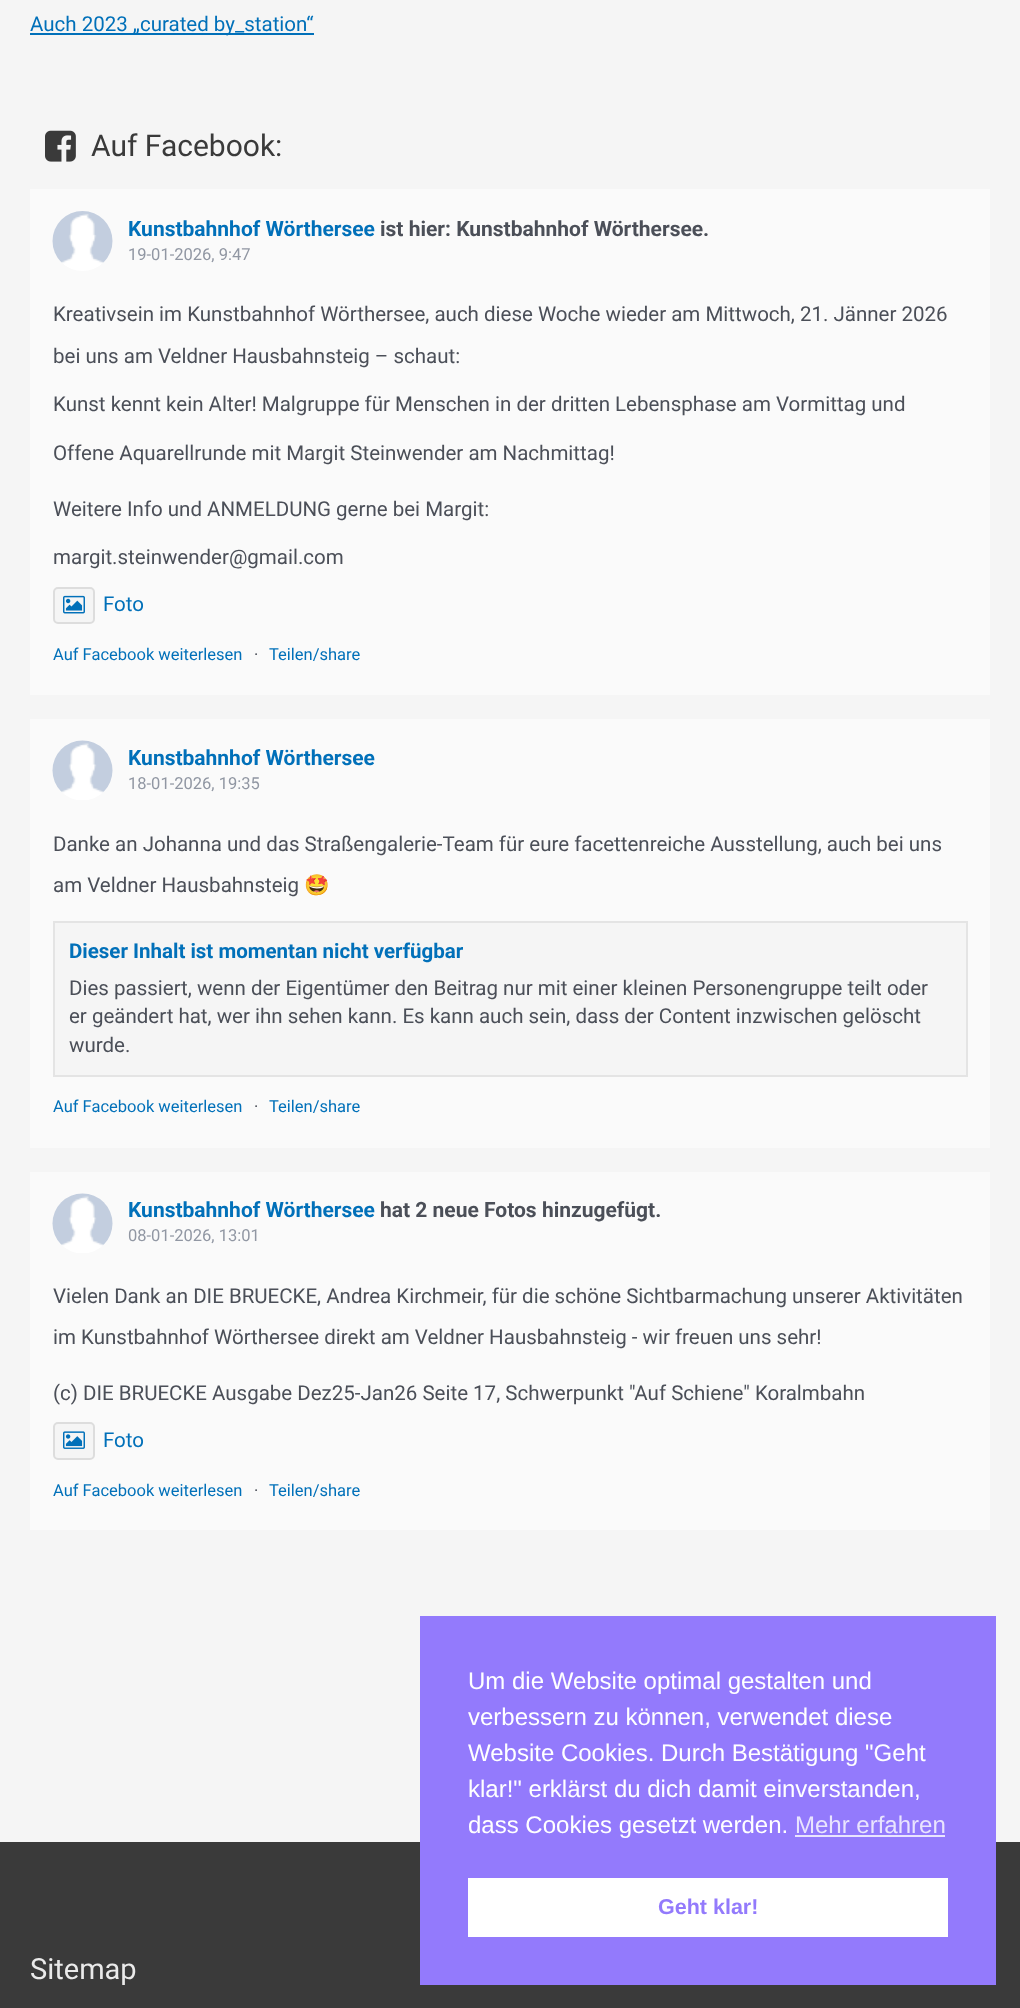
(async () => {
const canvas = document.querySelector("canvas")
canvas.width = 1020
canvas.height = 2008
const c = canvas.getContext("2d")
c.miterLimit = 4
c.fontKerning = "normal"
function T(s,x,y){c.fillText(s,x,y)}
function R(x,y,w,h){c.fillRect(x,y,w,h)}
async function I(src,x,y,w,h){const img=new Image();img.src=src;await img.decode();c.drawImage(img,x,y,w,h)}
c.fillStyle="#f5f5f5"
R(0,0,1020,2008)
c.fillStyle="#0170b9"
R(30,33,284,2)
c.font="20.5px Roboto"
T("Auch 2023 „curated by_station“",30,31)
await I("1.png",45,130,31,32)
c.font="30px Roboto"
c.fillStyle="#3a3a3a"
T("Auf Facebook:",91,156)
c.fillStyle="#fafafa"
R(30,189,960,506)
await I("2.png",52,211,61,60)
c.font="bold 21px Roboto"
c.fillStyle="#0170b9"
T("Kunstbahnhof Wörthersee",128,236)
c.fillStyle="#4b4f58"
T("ist hier: Kunstbahnhof Wörthersee.",380,236)
c.font="16.5px Roboto"
c.fillStyle="#9197a3"
T("19-01-2026, 9:47",128,260)
c.font="20.5px Roboto"
c.fillStyle="#4b4f58"
T("Kreativsein im Kunstbahnhof Wörthersee, auch diese Woche wieder am Mittwoch, 21. Jänner 2026",53,321)
T("bei uns am Veldner Hausbahnsteig – schaut:",53,363)
T("Kunst kennt kein Alter! Malgruppe für Menschen in der dritten Lebensphase am Vormittag und",53,411)
T("Offene Aquarellrunde mit Margit Steinwender am Nachmittag!",53,460)
T("Weitere Info und ANMELDUNG gerne bei Margit:",53,516)
T("margit.steinwender@gmail.com",53,564)
c.fillStyle="#f5f5f5"
c.beginPath()
c.roundRect(54,588,40,35,4)
c.fill()
c.strokeStyle="#ddd"
c.lineWidth=2
c.stroke()
await I("3.png",63,595,22,19)
c.fillStyle="#0170b9"
T("Foto",103,611)
c.font="16.5px Roboto"
T("Auf Facebook weiterlesen",53,660)
c.fillStyle="#4b4f58"
T("·",254,660)
c.fillStyle="#0170b9"
T("Teilen/share",269,660)
c.fillStyle="#fafafa"
R(30,719,960,429)
await I("4.png",52,740,61,60)
c.font="bold 21px Roboto"
c.fillStyle="#0170b9"
T("Kunstbahnhof Wörthersee",128,765)
c.font="16.5px Roboto"
c.fillStyle="#9197a3"
T("18-01-2026, 19:35",128,789)
c.font="20.5px Roboto"
c.fillStyle="#4b4f58"
T("Danke an Johanna und das Straßengalerie-Team für eure facettenreiche Ausstellung, auch bei uns",53,851)
T("am Veldner Hausbahnsteig",53,892)
c.font="20.5px Noto Color Emoji"
T("🤩",304,892)
c.fillStyle="#f5f5f5"
c.beginPath()
c.rect(54,922,913,154)
c.fill()
c.strokeStyle="#e4e4e4"
c.stroke()
c.font="bold 20.5px Roboto"
c.fillStyle="#0170b9"
T("Dieser Inhalt ist momentan nicht verfügbar",69,958)
c.font="20.5px Roboto"
c.fillStyle="#4b4f58"
T("Dies passiert, wenn der Eigentümer den Beitrag nur mit einer kleinen Personengruppe teilt oder",69,995)
T("er geändert hat, wer ihn sehen kann. Es kann auch sein, dass der Content inzwischen gelöscht",69,1023)
T("wurde.",69,1052)
c.font="16.5px Roboto"
c.fillStyle="#0170b9"
T("Auf Facebook weiterlesen",53,1112)
c.fillStyle="#4b4f58"
T("·",254,1112)
c.fillStyle="#0170b9"
T("Teilen/share",269,1112)
c.fillStyle="#fafafa"
R(30,1172,960,358)
await I("4.png",52,1193,61,60)
c.font="bold 21px Roboto"
c.fillStyle="#0170b9"
T("Kunstbahnhof Wörthersee",128,1217)
c.fillStyle="#4b4f58"
T("hat 2 neue Fotos hinzugefügt.",380,1217)
c.font="16.5px Roboto"
c.fillStyle="#9197a3"
T("08-01-2026, 13:01",128,1241)
c.font="20.5px Roboto"
c.fillStyle="#4b4f58"
T("Vielen Dank an DIE BRUECKE, Andrea Kirchmeir, für die schöne Sichtbarmachung unserer Aktivitäten",53,1303)
T("im Kunstbahnhof Wörthersee direkt am Veldner Hausbahnsteig - wir freuen uns sehr!",53,1344)
T("(c) DIE BRUECKE Ausgabe Dez25-Jan26 Seite 17, Schwerpunkt \"Auf Schiene\" Koralmbahn",53,1400)
c.fillStyle="#f5f5f5"
c.beginPath()
c.roundRect(54,1423,40,36,4)
c.fill()
c.strokeStyle="#ddd"
c.stroke()
await I("5.png",63,1431,22,18)
c.fillStyle="#0170b9"
T("Foto",103,1447)
c.font="16.5px Roboto"
T("Auf Facebook weiterlesen",53,1496)
c.fillStyle="#4b4f58"
T("·",254,1496)
c.fillStyle="#0170b9"
T("Teilen/share",269,1496)
c.fillStyle="#3a3a3a"
R(0,1842,1020,166)
c.font="29px Roboto"
c.fillStyle="#eaeaea"
T("Sitemap",30,1979)
c.fillStyle="#937afc"
R(420,1616,576,369)
c.font="24px Liberation Sans"
c.fillStyle="#fff"
T("Um die Website optimal gestalten und",468,1689)
T("verbessern zu können, verwendet diese",468,1725)
T("Website Cookies. Durch Bestätigung \"Geht",468,1761)
T("klar!\" erklärst du dich damit einverstanden,",468,1797)
T("dass Cookies gesetzt werden.",468,1833)
c.fillStyle="#e9e4fe"
T("Mehr erfahren",795,1833)
R(795,1835,150,2)
c.fillStyle="#fff"
R(468,1878,480,59)
c.font="bold 21.5px Liberation Sans"
c.fillStyle="#937afc"
T("Geht klar!",658,1914)
})()
